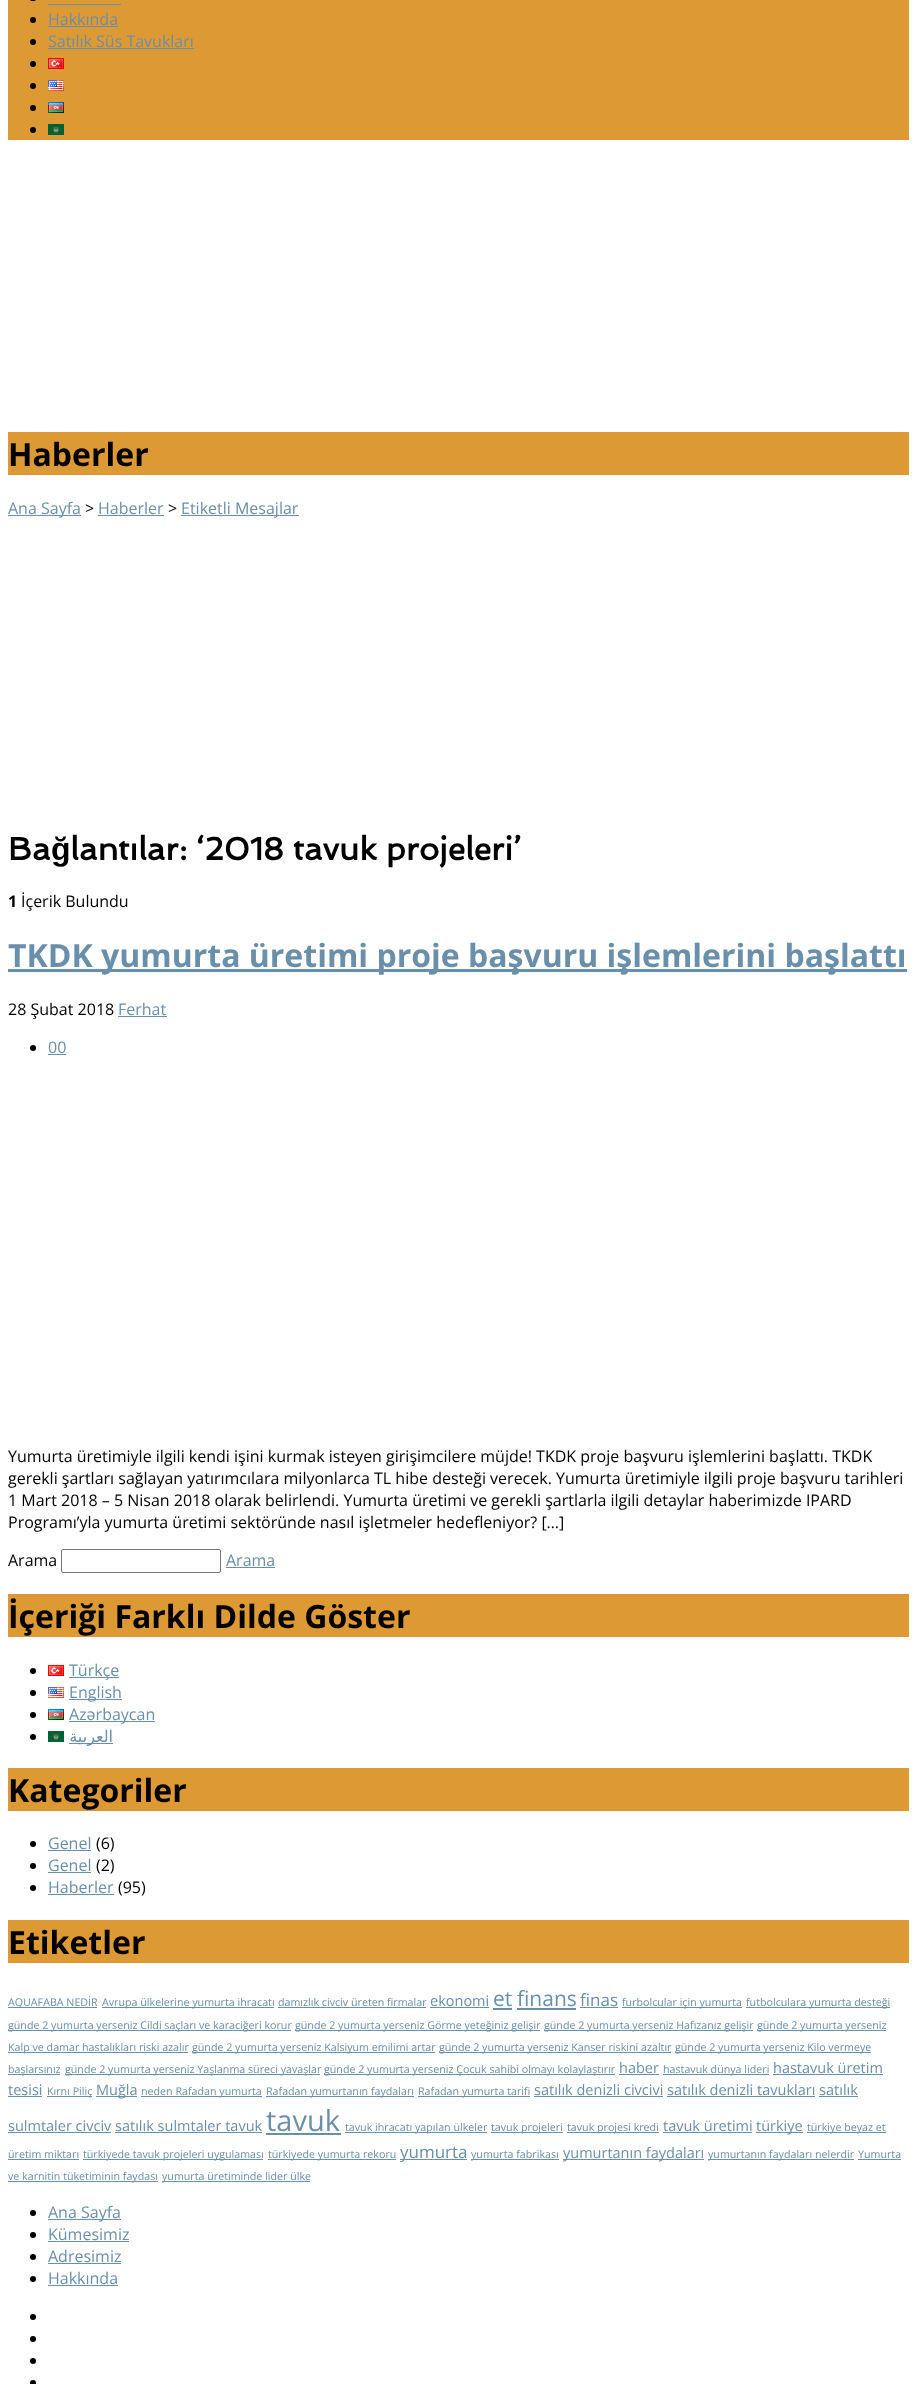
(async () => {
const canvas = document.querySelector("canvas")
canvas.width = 917
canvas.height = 2384
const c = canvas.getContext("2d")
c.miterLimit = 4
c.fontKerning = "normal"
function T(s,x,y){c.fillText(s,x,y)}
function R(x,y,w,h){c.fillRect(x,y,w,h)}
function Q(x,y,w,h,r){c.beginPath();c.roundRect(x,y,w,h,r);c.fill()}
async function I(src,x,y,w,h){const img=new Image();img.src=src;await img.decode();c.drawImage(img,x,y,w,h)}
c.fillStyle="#fff"
R(0,0,917,2384)
c.fillStyle="#d93"
R(8,0,901,140)
c.fillStyle="#000"
Q(30,-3,6,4,3)
c.fillStyle="#6a8fab"
R(48,4,73,1)
c.fillStyle="#000"
c.beginPath()
c.arc(33,20,3,0,7)
c.fill()
c.font="16px Open Sans"
c.fillStyle="#6a8fab"
T("Hakkında",48,25)
R(48,26,70,1)
c.fillStyle="#000"
c.beginPath()
c.arc(33,42,3,0,7)
c.fill()
c.fillStyle="#6a8fab"
T("Satılık Süs Tavukları",48,47)
R(48,48,146,1)
c.fillStyle="#000"
c.beginPath()
c.arc(33,64,3,0,7)
c.fill()
await I("1.png",48,58,16,11)
c.beginPath()
c.arc(33,86,3,0,7)
c.fill()
await I("2.png",48,80,16,11)
c.beginPath()
c.arc(33,108,3,0,7)
c.fill()
await I("3.png",48,102,16,11)
c.beginPath()
c.arc(33,130,3,0,7)
c.fill()
await I("4.png",48,124,16,11)
c.fillStyle="#d93"
R(8,432,901,43)
c.font="bold 32px Open Sans"
c.fillStyle="#000"
T("Haberler",8,466)
c.fillStyle="#6a8fab"
R(8,515,73,1)
c.font="16px Open Sans"
T("Ana Sayfa",8,514)
c.fillStyle="#000"
T(">",85,514)
c.fillStyle="#6a8fab"
T("Haberler",98,514)
R(98,515,66,1)
c.fillStyle="#000"
T(">",168,514)
c.fillStyle="#6a8fab"
R(181,515,118,1)
T("Etiketli Mesajlar",181,514)
c.font="bold 32px Spinnaker"
c.fillStyle="#000"
T("Ba",8,860)
c.font="bold 32px Liberation Sans"
T("ğ",51,860)
c.font="bold 32px Spinnaker"
T("lantılar: ‘2018 tavuk projeleri’",70,860)
c.font="bold 16px Open Sans"
T("1",8,907)
c.font="16px Open Sans"
T("İçerik Bulundu",21,907)
c.fillStyle="#6a8fab"
R(8,969,899,3)
c.font="bold 32px Open Sans"
T("TKDK yumurta üretimi proje başvuru işlemlerini başlattı",8,967)
c.font="16px Open Sans"
c.fillStyle="#000"
T("28 Şubat 2018",8,1015)
c.fillStyle="#6a8fab"
T("Ferhat",118,1015)
R(118,1016,49,1)
c.fillStyle="#000"
c.beginPath()
c.arc(33,1048,3,0,7)
c.fill()
c.fillStyle="#6a8fab"
T("00",48,1053)
R(48,1054,18,1)
c.fillStyle="#000"
T("Yumurta üretimiyle ilgili kendi işini kurmak isteyen girişimcilere müjde! TKDK proje başvuru işlemlerini başlattı. TKDK",8,1462)
T("gerekli şartları sağlayan yatırımcılara milyonlarca TL hibe desteği verecek. Yumurta üretimiyle ilgili proje başvuru tarihleri",8,1484)
T("1 Mart 2018 – 5 Nisan 2018 olarak belirlendi. Yumurta üretimi ve gerekli şartlarla ilgili detaylar haberimizde IPARD",8,1506)
T("Programı’yla yumurta üretimi sektöründe nasıl işletmeler hedefleniyor? […]",8,1528)
T("Arama",8,1566)
c.beginPath()
c.roundRect(61.5,1549.5,159,23,1.5)
c.strokeStyle="#767676"
c.stroke()
c.fillStyle="#6a8fab"
T("Arama",226,1566)
R(226,1567,49,1)
c.fillStyle="#d93"
R(8,1594,901,43)
c.font="bold 32px Open Sans"
c.fillStyle="#000"
T("İçeriği Farklı Dilde Göster",8,1628)
c.beginPath()
c.arc(33,1671,3,0,7)
c.fill()
await I("1.png",48,1665,16,11)
c.fillStyle="#6a8fab"
R(69,1677,50,1)
c.font="16px Open Sans"
T("Türkçe",69,1676)
c.fillStyle="#000"
c.beginPath()
c.arc(33,1693,3,0,7)
c.fill()
await I("2.png",48,1687,16,11)
c.fillStyle="#6a8fab"
R(69,1699,53,1)
T("English",69,1698)
c.fillStyle="#000"
c.beginPath()
c.arc(33,1715,3,0,7)
c.fill()
await I("3.png",48,1709,16,11)
c.fillStyle="#6a8fab"
R(69,1721,86,1)
T("Azərbaycan",69,1720)
c.fillStyle="#000"
c.beginPath()
c.arc(33,1737,3,0,7)
c.fill()
await I("4.png",48,1731,16,11)
c.fillStyle="#6a8fab"
R(69,1743,44,1)
c.direction="rtl"
c.font="16px DejaVu Sans"
T("العربية",113,1742)
c.fillStyle="#d93"
R(8,1768,901,43)
c.direction="ltr"
c.font="bold 32px Open Sans"
c.fillStyle="#000"
T("Kategoriler",8,1802)
c.beginPath()
c.arc(33,1844,3,0,7)
c.fill()
c.font="16px Open Sans"
c.fillStyle="#6a8fab"
T("Genel",48,1849)
R(48,1850,43,1)
c.fillStyle="#000"
T("(6)",96,1849)
c.beginPath()
c.arc(33,1866,3,0,7)
c.fill()
c.fillStyle="#6a8fab"
T("Genel",48,1871)
R(48,1872,43,1)
c.fillStyle="#000"
T("(2)",96,1871)
c.beginPath()
c.arc(33,1888,3,0,7)
c.fill()
c.fillStyle="#6a8fab"
T("Haberler",48,1893)
R(48,1894,66,1)
c.fillStyle="#000"
T("(95)",118,1893)
c.fillStyle="#d93"
R(8,1920,901,43)
c.font="bold 32px Open Sans"
c.fillStyle="#000"
T("Etiketler",8,1954)
c.fillStyle="#6a8fab"
R(8,2007,89,1)
c.font="10.7px Open Sans"
T("AQUAFABA NEDİR",8,2006)
R(102,2007,172,1)
T("Avrupa ülkelerine yumurta ihracatı",102,2006)
T("damızlık civciv üreten firmalar",278,2006)
R(278,2007,148,1)
c.font="14.5px Open Sans"
T("ekonomi",430,2006)
R(430,2007,59,1)
c.font="21px Open Sans"
T("et",493,2006)
R(493,2008,19,2)
T("finans",517,2006)
R(517,2008,59,2)
c.font="17px Open Sans"
T("finas",580,2006)
R(580,2007,38,1)
R(622,2007,120,1)
c.font="10.7px Open Sans"
T("furbolcular için yumurta",622,2006)
R(746,2007,144,1)
T("futbolculara yumurta desteği",746,2006)
R(8,2030,283,1)
T("günde 2 yumurta yerseniz Cildi saçları ve karaciğeri korur",8,2029)
R(295,2030,245,1)
T("günde 2 yumurta yerseniz Görme yeteğiniz gelişir",295,2029)
R(544,2030,209,1)
T("günde 2 yumurta yerseniz Hafızanız gelişir",544,2029)
R(757,2030,129,1)
T("günde 2 yumurta yerseniz",757,2029)
R(8,2052,180,1)
T("Kalp ve damar hastalıkları riski azalır",8,2051)
R(192,2052,243,1)
T("günde 2 yumurta yerseniz Kalsiyum emilimi artar",192,2051)
R(439,2052,232,1)
T("günde 2 yumurta yerseniz Kanser riskini azaltır",439,2051)
R(675,2052,196,1)
T("günde 2 yumurta yerseniz Kilo vermeye",675,2051)
R(8,2074,52,1)
T("başlarsınız",8,2073)
R(65,2074,255,1)
T("günde 2 yumurta yerseniz Yaşlanma süreci yavaşlar",65,2073)
R(324,2074,291,1)
T("günde 2 yumurta yerseniz Çocuk sahibi olmayı kolaylaştırır",324,2073)
c.font="14.5px Open Sans"
T("haber",619,2073)
R(619,2074,40,1)
R(663,2074,106,1)
c.font="10.7px Open Sans"
T("hastavuk dünya lideri",663,2073)
c.font="14.5px Open Sans"
T("hastavuk üretim",773,2073)
R(773,2074,110,1)
T("tesisi",8,2095)
R(8,2096,34,1)
R(47,2096,45,1)
c.font="10.7px Open Sans"
T("Kırnı Piliç",47,2095)
R(96,2096,41,1)
c.font="14.5px Open Sans"
T("Muğla",96,2095)
R(141,2096,121,1)
c.font="10.7px Open Sans"
T("neden Rafadan yumurta",141,2095)
R(266,2096,148,1)
T("Rafadan yumurtanın faydaları",266,2095)
R(418,2096,112,1)
T("Rafadan yumurta tarifi",418,2095)
c.font="14.5px Open Sans"
T("satılık denizli civcivi satılık denizli tavukları satılık",534,2095)
R(534,2096,129,1)
R(667,2096,148,1)
T("sulmtaler civciv satılık sulmtaler tavuk",8,2131)
R(819,2096,39,1)
R(8,2132,103,1)
c.font="29px Open Sans"
T("tavuk",266,2131)
R(266,2133,75,2)
R(345,2132,142,1)
c.font="10.7px Open Sans"
T("tavuk ihracatı yapılan ülkeler",345,2131)
R(491,2132,72,1)
T("tavuk projeleri",491,2131)
R(567,2132,92,1)
T("tavuk projesi kredi",567,2131)
c.font="14.5px Open Sans"
T("tavuk üretimi",663,2131)
R(663,2132,89,1)
R(756,2132,47,1)
T("türkiye",756,2131)
R(807,2132,79,1)
c.font="10.7px Open Sans"
T("türkiye beyaz et",807,2131)
R(115,2132,147,1)
T("üretim miktarı",8,2158)
R(8,2159,71,1)
R(83,2159,180,1)
T("türkiyede tavuk projeleri uygulaması",83,2158)
R(268,2159,128,1)
T("türkiyede yumurta rekoru",268,2158)
R(400,2159,67,1)
c.font="17px Open Sans"
T("yumurta",400,2158)
R(471,2159,88,1)
c.font="10.7px Open Sans"
T("yumurta fabrikası",471,2158)
R(563,2159,141,1)
c.font="14.5px Open Sans"
T("yumurtanın faydaları",563,2158)
R(708,2159,146,1)
c.font="10.7px Open Sans"
T("yumurtanın faydaları nelerdir",708,2158)
T("Yumurta",858,2158)
R(858,2159,43,1)
R(8,2181,150,1)
T("ve karnitin tüketiminin faydası",8,2180)
R(162,2181,148,1)
T("yumurta üretiminde lider ülke",162,2180)
c.fillStyle="#000"
c.beginPath()
c.arc(33,2213,3,0,7)
c.fill()
c.fillStyle="#6a8fab"
R(48,2219,73,1)
c.font="16px Open Sans"
T("Ana Sayfa",48,2218)
c.fillStyle="#000"
c.beginPath()
c.arc(33,2235,3,0,7)
c.fill()
c.fillStyle="#6a8fab"
T("Kümesimiz",48,2240)
R(48,2241,81,1)
c.fillStyle="#000"
c.beginPath()
c.arc(33,2257,3,0,7)
c.fill()
c.fillStyle="#6a8fab"
T("Adresimiz",48,2262)
R(48,2263,73,1)
c.fillStyle="#000"
c.beginPath()
c.arc(33,2279,3,0,7)
c.fill()
c.fillStyle="#6a8fab"
T("Hakkında",48,2284)
R(48,2285,70,1)
c.fillStyle="#000"
c.beginPath()
c.arc(33,2317,3,0,7)
c.fill()
c.beginPath()
c.arc(33,2339,3,0,7)
c.fill()
c.beginPath()
c.arc(33,2361,3,0,7)
c.fill()
c.beginPath()
c.arc(33,2383,3,0,7)
c.fill()
})()
